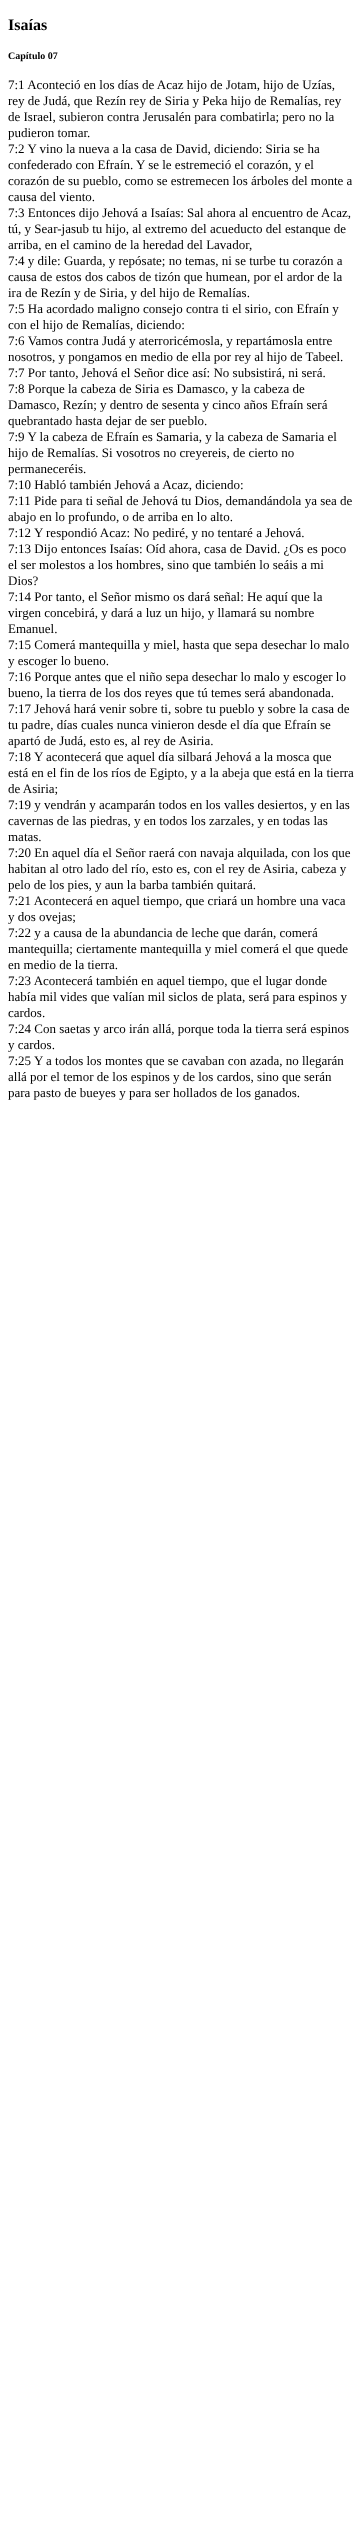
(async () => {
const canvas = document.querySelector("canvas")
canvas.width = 362
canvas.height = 2535
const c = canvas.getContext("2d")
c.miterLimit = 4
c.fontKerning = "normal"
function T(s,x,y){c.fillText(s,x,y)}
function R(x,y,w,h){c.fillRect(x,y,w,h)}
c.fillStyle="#fff"
R(0,0,362,2535)
c.font="bold 16px Liberation Serif"
c.fillStyle="#000"
T("Isaías",8,30)
c.font="bold 10px Liberation Serif"
T("Capítulo 07",8,59)
c.font="13px Liberation Serif"
T("7:1 Aconteció en los días de Acaz hijo de Jotam, hijo de Uzías,",8,89)
T("rey de Judá, que Rezín rey de Siria y Peka hijo de Remalías, rey",8,105)
T("de Israel, subieron contra Jerusalén para combatirla; pero no la",8,121)
T("pudieron tomar.",8,137)
T("7:2 Y vino la nueva a la casa de David, diciendo: Siria se ha",8,153)
T("confederado con Efraín. Y se le estremeció el corazón, y el",8,169)
T("corazón de su pueblo, como se estremecen los árboles del monte a",8,185)
T("causa del viento.",8,201)
T("7:3 Entonces dijo Jehová a Isaías: Sal ahora al encuentro de Acaz,",8,217)
T("tú, y Sear-jasub tu hijo, al extremo del acueducto del estanque de",8,233)
T("arriba, en el camino de la heredad del Lavador,",8,249)
T("7:4 y dile: Guarda, y repósate; no temas, ni se turbe tu corazón a",8,265)
T("causa de estos dos cabos de tizón que humean, por el ardor de la",8,281)
T("ira de Rezín y de Siria, y del hijo de Remalías.",8,297)
T("7:5 Ha acordado maligno consejo contra ti el sirio, con Efraín y",8,313)
T("con el hijo de Remalías, diciendo:",8,329)
T("7:6 Vamos contra Judá y aterroricémosla, y repartámosla entre",8,345)
T("nosotros, y pongamos en medio de ella por rey al hijo de Tabeel.",8,361)
T("7:7 Por tanto, Jehová el Señor dice así: No subsistirá, ni será.",8,377)
T("7:8 Porque la cabeza de Siria es Damasco, y la cabeza de",8,393)
T("Damasco, Rezín; y dentro de sesenta y cinco años Efraín será",8,409)
T("quebrantado hasta dejar de ser pueblo.",8,425)
T("7:9 Y la cabeza de Efraín es Samaria, y la cabeza de Samaria el",8,441)
T("hijo de Remalías. Si vosotros no creyereis, de cierto no",8,457)
T("permaneceréis.",8,473)
T("7:10 Habló también Jehová a Acaz, diciendo:",8,489)
T("7:11 Pide para ti señal de Jehová tu Dios, demandándola ya sea de",8,505)
T("abajo en lo profundo, o de arriba en lo alto.",8,521)
T("7:12 Y respondió Acaz: No pediré, y no tentaré a Jehová.",8,537)
T("7:13 Dijo entonces Isaías: Oíd ahora, casa de David. ¿Os es poco",8,553)
T("el ser molestos a los hombres, sino que también lo seáis a mi",8,569)
T("Dios?",8,585)
T("7:14 Por tanto, el Señor mismo os dará señal: He aquí que la",8,601)
T("virgen concebirá, y dará a luz un hijo, y llamará su nombre",8,617)
T("Emanuel.",8,633)
T("7:15 Comerá mantequilla y miel, hasta que sepa desechar lo malo",8,649)
T("y escoger lo bueno.",8,665)
T("7:16 Porque antes que el niño sepa desechar lo malo y escoger lo",8,681)
T("bueno, la tierra de los dos reyes que tú temes será abandonada.",8,697)
T("7:17 Jehová hará venir sobre ti, sobre tu pueblo y sobre la casa de",8,713)
T("tu padre, días cuales nunca vinieron desde el día que Efraín se",8,729)
T("apartó de Judá, esto es, al rey de Asiria.",8,745)
T("7:18 Y acontecerá que aquel día silbará Jehová a la mosca que",8,761)
T("está en el fin de los ríos de Egipto, y a la abeja que está en la tierra",8,777)
T("de Asiria;",8,793)
T("7:19 y vendrán y acamparán todos en los valles desiertos, y en las",8,809)
T("cavernas de las piedras, y en todos los zarzales, y en todas las",8,825)
T("matas.",8,841)
T("7:20 En aquel día el Señor raerá con navaja alquilada, con los que",8,857)
T("habitan al otro lado del río, esto es, con el rey de Asiria, cabeza y",8,873)
T("pelo de los pies, y aun la barba también quitará.",8,889)
T("7:21 Acontecerá en aquel tiempo, que criará un hombre una vaca",8,905)
T("y dos ovejas;",8,921)
T("7:22 y a causa de la abundancia de leche que darán, comerá",8,937)
T("mantequilla; ciertamente mantequilla y miel comerá el que quede",8,953)
T("en medio de la tierra.",8,969)
T("7:23 Acontecerá también en aquel tiempo, que el lugar donde",8,985)
T("había mil vides que valían mil siclos de plata, será para espinos y",8,1001)
T("cardos.",8,1017)
T("7:24 Con saetas y arco irán allá, porque toda la tierra será espinos",8,1033)
T("y cardos.",8,1049)
T("7:25 Y a todos los montes que se cavaban con azada, no llegarán",8,1065)
T("allá por el temor de los espinos y de los cardos, sino que serán",8,1081)
T("para pasto de bueyes y para ser hollados de los ganados.",8,1097)
})()
